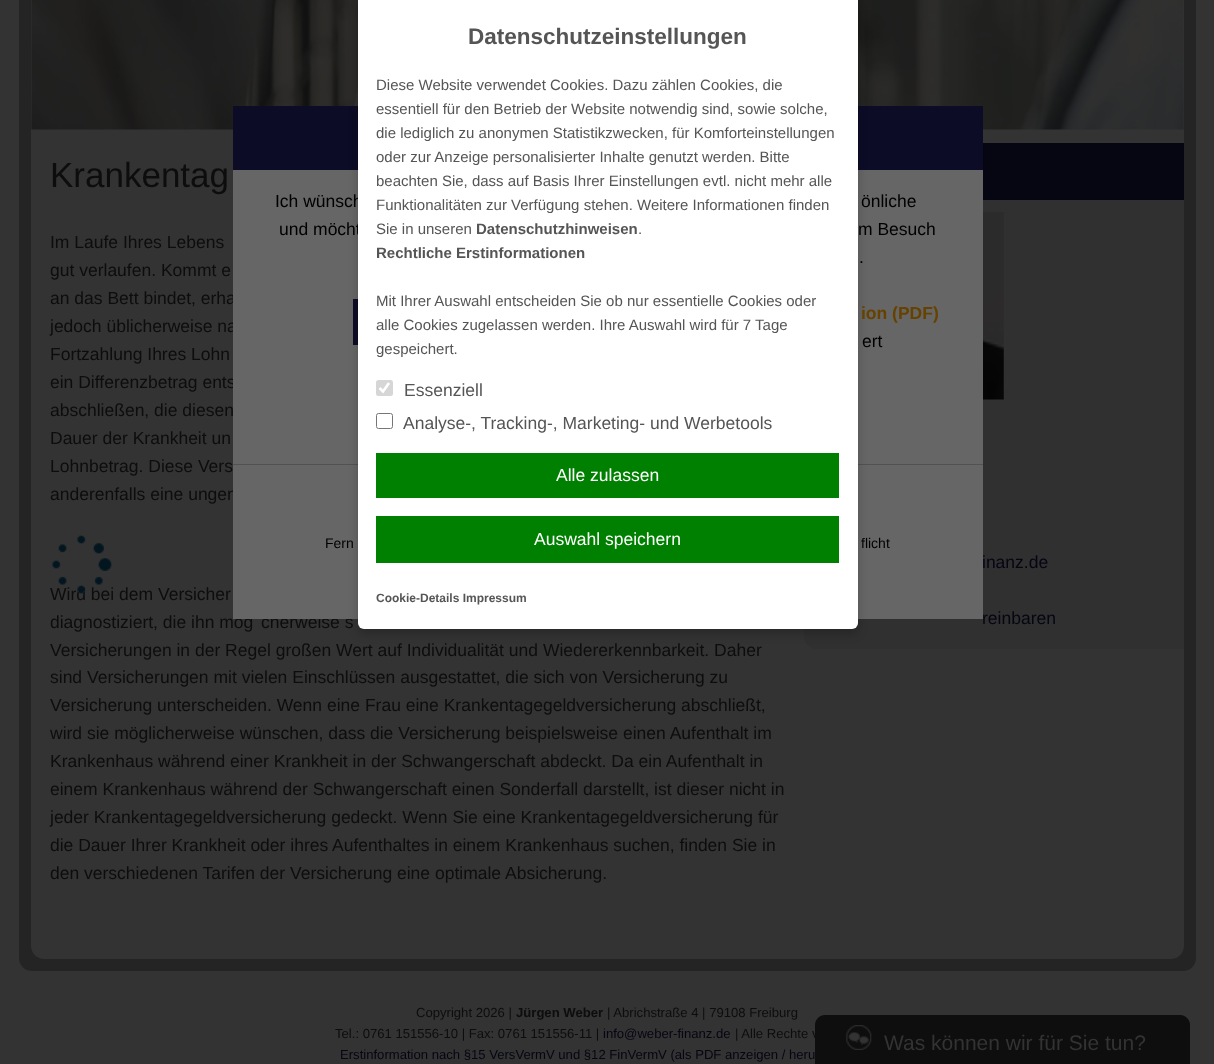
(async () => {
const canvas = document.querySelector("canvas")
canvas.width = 1214
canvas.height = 1064
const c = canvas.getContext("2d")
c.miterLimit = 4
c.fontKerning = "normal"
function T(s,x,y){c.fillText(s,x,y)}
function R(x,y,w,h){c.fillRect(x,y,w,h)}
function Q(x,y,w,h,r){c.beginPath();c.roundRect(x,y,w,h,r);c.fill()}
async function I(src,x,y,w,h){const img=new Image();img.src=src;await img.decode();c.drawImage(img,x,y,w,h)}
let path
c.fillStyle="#333"
R(0,0,1214,1064)
c.fillStyle="#242424"
c.beginPath()
c.roundRect(25.5,-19.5,1164,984,6.5)
c.fill()
c.strokeStyle="#242424"
c.lineWidth=13
c.stroke()
c.fillStyle="#333"
path = new Path2D("M31-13h1153v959c0 7-6 13-13 13h-1127c-7 0-13-6-13-13z")
c.fill(path)
await I("1.png",31,0,1153,130)
c.fillStyle="#303030"
c.beginPath()
c.roundRect(804,143,380,506,[13,0,0,13])
c.fill()
c.font="17.5px Liberation Sans"
c.fillStyle="#0d0d0d"
T("an das Bett bindet, erha",50,304)
T("jedoch üblicherweise na",50,332)
T("ein Differenzbetrag ents",50,388)
T("anderenfalls eine ungen",50,500)
T("diagnostiziert, die ihn mög",50,628)
T("cherweise s",261,628)
c.fillStyle="#666"
R(233,170,750,449)
c.fillStyle="#0d0c26"
R(233,106,750,64)
R(353,299,5,46)
c.fillStyle="#525252"
R(233,464,750,1)
c.fillStyle="#00000033"
c.filter="blur(5px)"
c.beginPath()
c.roundRect(358,5,500,629,6)
c.fill()
c.filter="none"
c.fillStyle="#000"
T("Ich wünsch",275,207)
T("und möcht",279,235)
c.fillStyle="#fff"
c.beginPath()
c.roundRect(358,0,500,629,[0,0,6,6])
c.fill()
c.font="bold 22.5px Liberation Sans"
c.fillStyle="#555"
T("Datenschutzeinstellungen",468,44)
c.font="15px Liberation Sans"
T("Diese Website verwendet Cookies. Dazu zählen Cookies, die",376,90)
T("essentiell für den Betrieb der Website notwendig sind, sowie solche,",376,114)
T("die lediglich zu anonymen Statistikzwecken, für Komforteinstellungen",376,138)
T("oder zur Anzeige personalisierter Inhalte genutzt werden. Bitte",376,162)
T("beachten Sie, dass auf Basis Ihrer Einstellungen evtl. nicht mehr alle",376,186)
T("Funktionalitäten zur Verfügung stehen. Weitere Informationen finden",376,210)
T("Sie in unseren",376,234)
c.font="bold 15px Liberation Sans"
T("Datenschutzhinweisen",476,234)
c.font="15px Liberation Sans"
T(".",638,234)
c.font="bold 15px Liberation Sans"
T("Rechtliche Erstinformationen",376,258)
c.font="15px Liberation Sans"
T("Mit Ihrer Auswahl entscheiden Sie ob nur essentielle Cookies oder",376,306)
T("alle Cookies zugelassen werden. Ihre Auswahl wird für 7 Tage",376,330)
T("gespeichert.",376,354)
c.fillStyle="#d6d6d6"
Q(376,380,17,16,2.5)
path = new Path2D("M379.5 388l3.5 3.5l6-8.5")
c.strokeStyle="#fff"
c.lineWidth=2.6
c.stroke(path)
c.font="17.5px Liberation Sans"
c.fillStyle="#555"
T("Essenziell",404,396)
c.beginPath()
c.roundRect(376.5,413.5,16,15,2)
c.strokeStyle="#767676"
c.lineWidth=1
c.stroke()
T("Analyse-, Tracking-, Marketing- und Werbetools",403,429)
c.fillStyle="#008000"
R(376,453,463,45)
c.fillStyle="#fff"
T("Alle zulassen",556,481)
c.fillStyle="#008000"
R(376,516,463,47)
c.fillStyle="#fff"
T("Auswahl speichern",534,545)
c.font="bold 12px Liberation Sans"
c.fillStyle="#555"
T("Cookie-Details Impressum",376,602)
c.font="35px Liberation Sans"
c.fillStyle="#0d0d0d"
T("Krankentag",50,187)
c.font="17.5px Liberation Sans"
T("Im Laufe Ihres Lebens",50,248)
T("gut verlaufen. Kommt e",50,276)
T("Fortzahlung Ihres Lohn",50,360)
T("abschließen, die diesen",50,416)
T("Dauer der Krankheit un",50,444)
T("Lohnbetrag. Diese Vers",50,472)
T("Wird bei dem Versicher",50,600)
await I("2.png",52,535,60,59)
T("Versicherungen in der Regel großen Wert auf Individualität und Wiedererkennbarkeit. Daher",50,656)
T("sind Versicherungen mit vielen Einschlüssen ausgestattet, die sich von Versicherung zu",50,683)
T("Versicherung unterscheiden. Wenn eine Frau eine Krankentagegeldversicherung abschließt,",50,711)
T("wird sie möglicherweise wünschen, dass die Versicherung beispielsweise einen Aufenthalt im",50,739)
T("Krankenhaus während einer Krankheit in der Schwangerschaft abdeckt. Da ein Aufenthalt in",50,767)
T("einem Krankenhaus während der Schwangerschaft einen Sonderfall darstellt, ist dieser nicht in",50,795)
T("jeder Krankentagegeldversicherung gedeckt. Wenn Sie eine Krankentagegeldversicherung für",50,823)
T("die Dauer Ihrer Krankheit oder ihres Aufenthaltes in einem Krankenhaus suchen, finden Sie in",50,851)
T("den verschiedenen Tarifen der Versicherung eine optimale Absicherung.",50,879)
c.fillStyle="#060613"
R(983,143,201,57)
await I("3.png",983,212,21,188)
T("inanz.de",982,568)
T("reinbaren",982,624)
c.font="13.1px Liberation Sans"
c.fillStyle="#0d0d0d"
T("Copyright 2026 |",416,1017)
c.font="bold 13.1px Liberation Sans"
T("Jürgen Weber",516,1017)
c.font="13.1px Liberation Sans"
T("| Abrichstraße 4 | 79108 Freiburg",607,1017)
T("Tel.: 0761 151556-10 | Fax: 0761 151556-11 |",335,1038)
c.fillStyle="#060613"
T("info@weber-finanz.de",603,1038)
c.fillStyle="#0d0d0d"
T("| Alle Rechte v",735,1038)
c.fillStyle="#060613"
T("Erstinformation nach §15 VersVermV und §12 FinVermV (als PDF anzeigen / heru",340,1059)
c.font="17.5px Liberation Sans"
c.fillStyle="#000"
T("önliche",861,207)
T("m Besuch",858,235)
T(".",859,263)
c.font="bold 17.5px Liberation Sans"
c.fillStyle="#664200"
T("ion (PDF)",861,319)
c.font="17.5px Liberation Sans"
c.fillStyle="#000"
T("ert",862,347)
c.font="14px Liberation Sans"
T("Fern",325,548)
T("flicht",861,548)
c.fillStyle="#0e0e0e"
path = new Path2D("M825 1015h355c5.5 0 10 4.5 10 10v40h-375v-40c0-5.5 4.5-10 10-10z")
c.fill(path)
await I("4.png",846,1025,26,25)
c.font="21px Liberation Sans"
c.fillStyle="#333"
T("Was können wir für Sie tun?",884,1050)
})()
